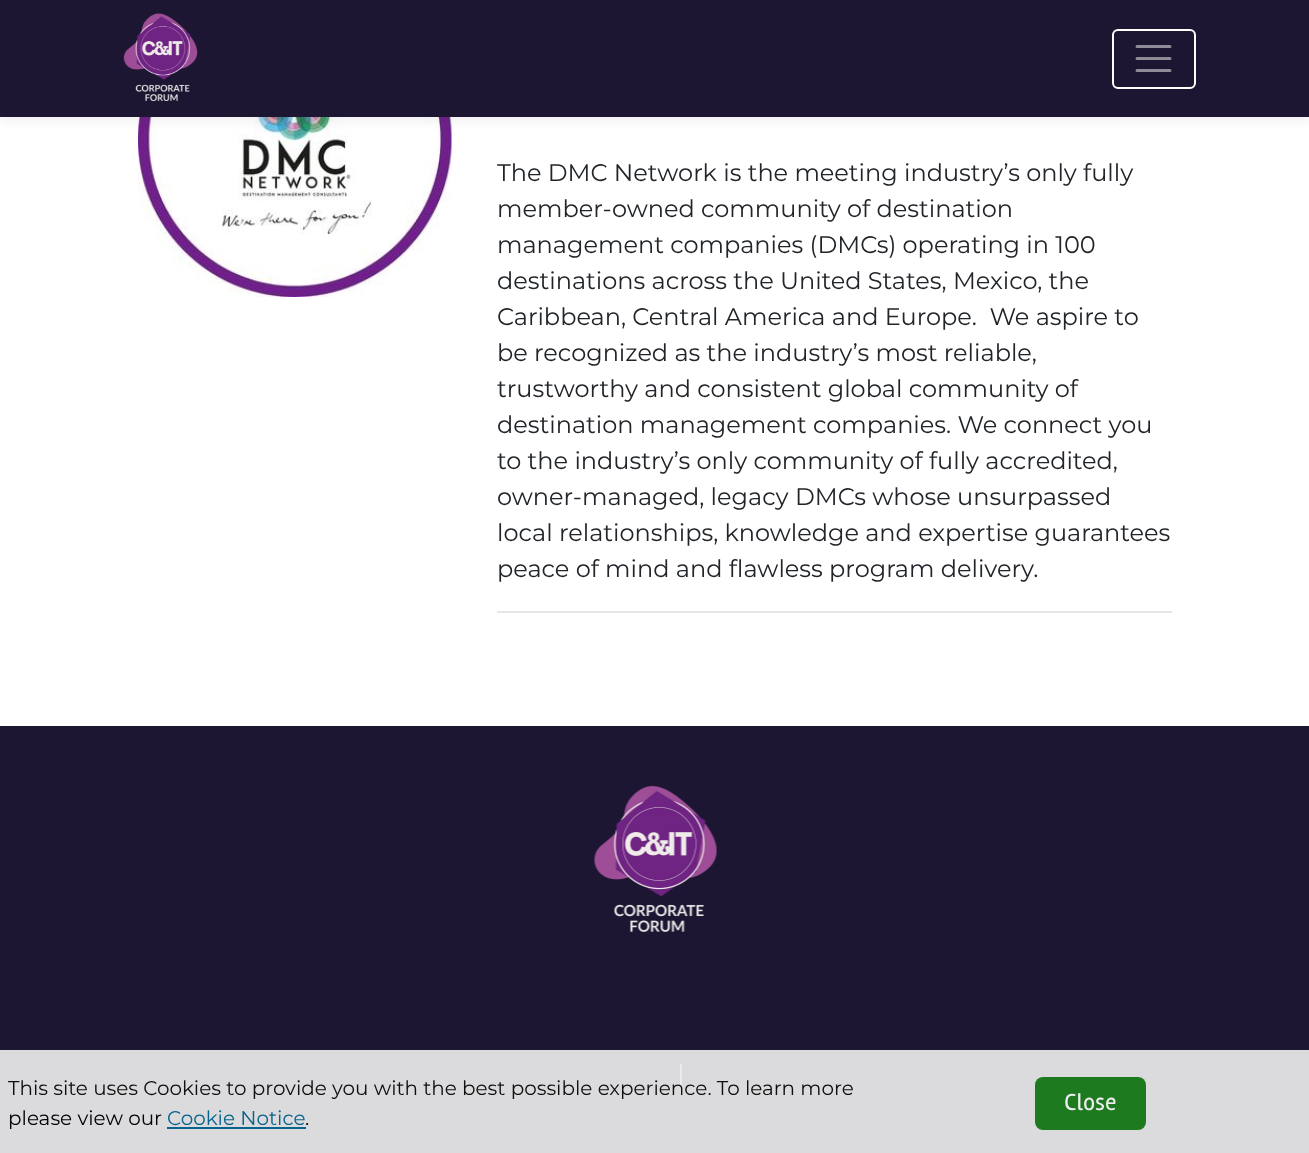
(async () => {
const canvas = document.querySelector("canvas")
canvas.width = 1309
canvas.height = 1153
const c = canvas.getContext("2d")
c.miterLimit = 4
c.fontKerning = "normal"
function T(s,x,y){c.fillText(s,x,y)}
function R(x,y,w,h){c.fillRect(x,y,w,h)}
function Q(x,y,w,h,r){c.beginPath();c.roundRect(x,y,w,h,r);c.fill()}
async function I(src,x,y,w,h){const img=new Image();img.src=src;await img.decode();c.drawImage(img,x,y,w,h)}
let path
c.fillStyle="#fff"
R(0,0,1309,1153)
await I("2.png",138,117,314,180)
c.fillStyle="#0000001a"
c.filter="blur(7.5px)"
c.beginPath()
c.rect(0,0,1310,117)
c.fill()
c.filter="none"
c.fillStyle="#1d1633"
R(0,0,1309,117)
await I("1.png",123,13,75,88)
c.beginPath()
c.roundRect(1113,30,82,58,5)
c.strokeStyle="#fff"
c.lineWidth=2
c.stroke()
path = new Path2D("M1137 46.5h33m-33 12h33m-33 12h33")
c.strokeStyle="#8e8b99"
c.lineWidth=3
c.lineCap="round"
c.stroke(path)
c.font="24px Montserrat"
c.fillStyle="#212529"
T("The DMC Network is the meeting industry’s only fully",497,181)
T("member-owned community of destination",497,217)
T("management companies (DMCs) operating in 100",497,253)
T("destinations across the United States, Mexico, the",497,289)
T("Caribbean, Central America and Europe.  We aspire to",497,325)
T("be recognized as the industry’s most reliable,",497,361)
T("trustworthy and consistent global community of",497,397)
T("destination management companies. We connect you",497,433)
T("to the industry’s only community of fully accredited,",497,469)
T("owner-managed, legacy DMCs whose unsurpassed",497,505)
T("local relationships, knowledge and expertise guarantees",497,541)
T("peace of mind and flawless program delivery.",497,577)
c.fillStyle="#e6e6e6"
R(497,611,675,2)
c.fillStyle="#1d1633"
R(0,726,1309,427)
await I("3.png",594,786,124,146)
c.fillStyle="#fff"
R(680,1064,2,30)
c.fillStyle="#eaeaeaed"
R(0,1050,1309,103)
c.font="19.95px Montserrat"
c.fillStyle="#0f0f0f"
T("This site uses Cookies to provide you with the best possible experience. To learn more",8,1095)
c.fillStyle="#020204"
T("please view our",8,1125)
c.fillStyle="#08648c"
T("Cookie Notice",167,1125)
R(167,1127,139,2)
c.fillStyle="#020204"
T(".",305,1125)
c.fillStyle="#1e7a1f"
Q(1035,1077,111,53,8)
c.font="24px Rambla"
c.fillStyle="#efeff1"
T("Close",1064,1110)
})()
